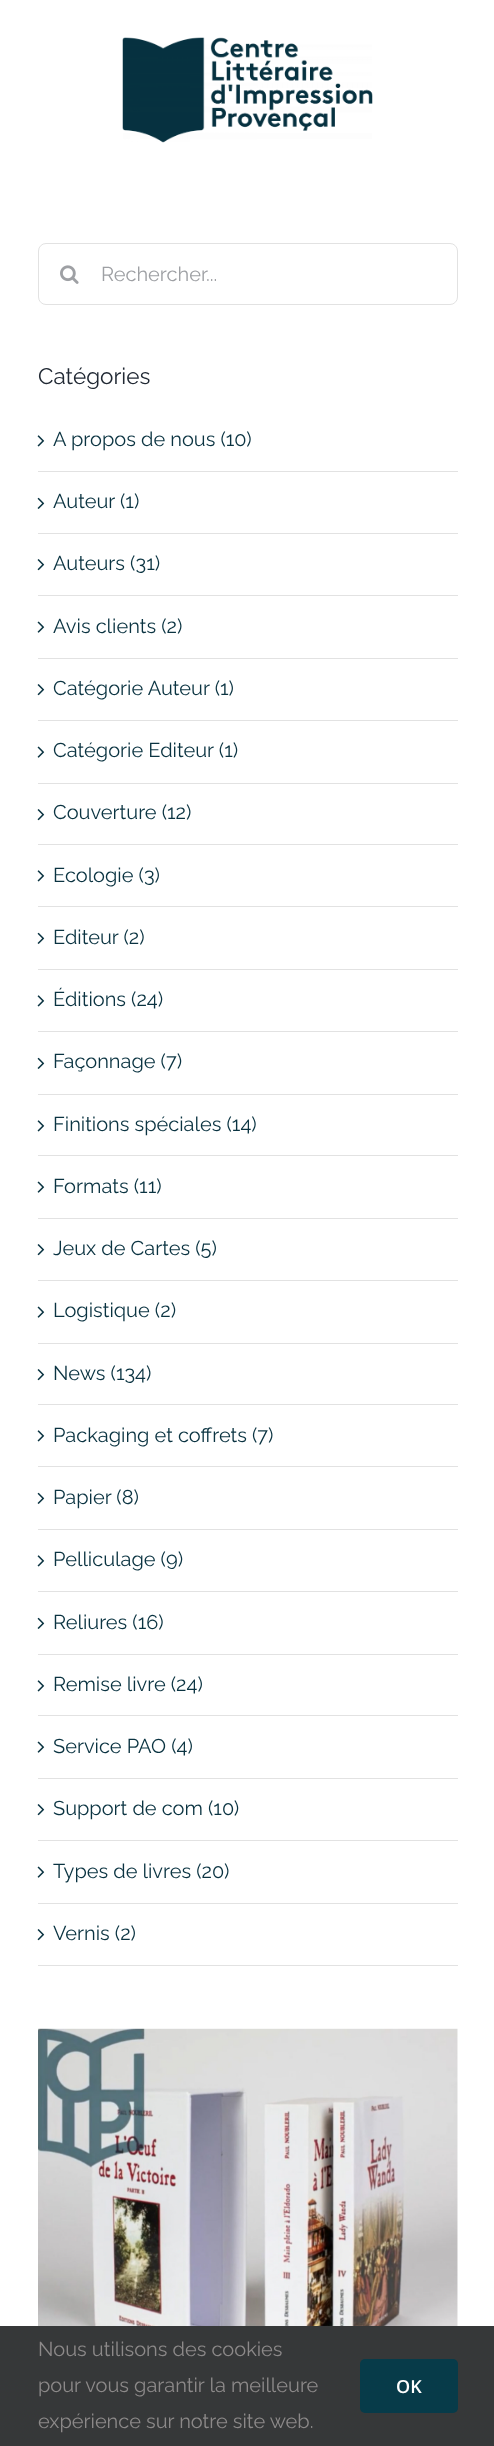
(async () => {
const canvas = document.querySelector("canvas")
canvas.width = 494
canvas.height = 2446
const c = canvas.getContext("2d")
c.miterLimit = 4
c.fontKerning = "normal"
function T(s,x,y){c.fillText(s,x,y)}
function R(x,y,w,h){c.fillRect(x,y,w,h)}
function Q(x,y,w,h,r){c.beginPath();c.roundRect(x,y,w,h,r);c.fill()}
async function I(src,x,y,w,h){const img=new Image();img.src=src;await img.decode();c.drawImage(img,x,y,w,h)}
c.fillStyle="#fff"
R(0,0,494,2446)
await I("1.png",122,37,251,106)
c.beginPath()
c.roundRect(38.5,243.5,419,61,7.5)
c.strokeStyle="#e2e2e2"
c.stroke()
await I("2.png",60,265,19,19)
c.font="20px Raleway"
c.fillStyle="#9ea0a4"
T("Rechercher...",101,281)
c.font="22.5px Raleway"
c.fillStyle="#212934"
T("Catégories",38,384)
c.fillStyle="#e2e2e2"
R(38,471,420,1)
await I("3.png",37,435,8,12)
c.font="20px Raleway"
c.fillStyle="#0a3341"
T("A propos de nous (10)",53,446)
c.fillStyle="#e2e2e2"
R(38,533,420,1)
await I("4.png",37,497,8,12)
c.fillStyle="#0a3341"
T("Auteur (1)",53,508)
c.fillStyle="#e2e2e2"
R(38,595,420,1)
await I("5.png",37,559,8,12)
c.fillStyle="#0a3341"
T("Auteurs (31)",53,570)
c.fillStyle="#e2e2e2"
R(38,658,420,1)
await I("6.png",37,621,8,12)
c.fillStyle="#0a3341"
T("Avis clients (2)",53,633)
c.fillStyle="#e2e2e2"
R(38,720,420,1)
await I("5.png",37,684,8,12)
c.fillStyle="#0a3341"
T("Catégorie Auteur (1)",53,695)
c.fillStyle="#e2e2e2"
R(38,783,420,1)
await I("6.png",37,746,8,12)
c.fillStyle="#0a3341"
T("Catégorie Editeur (1)",53,757)
c.fillStyle="#e2e2e2"
R(38,844,420,1)
await I("5.png",37,809,8,12)
c.fillStyle="#0a3341"
T("Couverture (12)",53,819)
c.fillStyle="#e2e2e2"
R(38,906,420,1)
await I("3.png",37,870,8,12)
c.fillStyle="#0a3341"
T("Ecologie (3)",53,882)
c.fillStyle="#e2e2e2"
R(38,969,420,1)
await I("4.png",37,932,8,12)
c.fillStyle="#0a3341"
T("Editeur (2)",53,944)
c.fillStyle="#e2e2e2"
R(38,1031,420,1)
await I("3.png",37,995,8,12)
c.fillStyle="#0a3341"
T("Éditions (24)",53,1006)
c.fillStyle="#e2e2e2"
R(38,1094,420,1)
await I("4.png",37,1057,8,12)
c.fillStyle="#0a3341"
T("Façonnage (7)",53,1068)
c.fillStyle="#e2e2e2"
R(38,1155,420,1)
await I("3.png",37,1120,8,12)
c.fillStyle="#0a3341"
T("Finitions spéciales (14)",53,1131)
c.fillStyle="#e2e2e2"
R(38,1218,420,1)
await I("6.png",37,1181,8,12)
c.fillStyle="#0a3341"
T("Formats (11)",53,1193)
c.fillStyle="#e2e2e2"
R(38,1280,420,1)
await I("5.png",37,1244,8,12)
c.fillStyle="#0a3341"
T("Jeux de Cartes (5)",53,1255)
c.fillStyle="#e2e2e2"
R(38,1343,420,1)
await I("6.png",37,1306,8,12)
c.fillStyle="#0a3341"
T("Logistique (2)",53,1317)
c.fillStyle="#e2e2e2"
R(38,1404,420,1)
await I("5.png",37,1369,8,12)
c.fillStyle="#0a3341"
T("News (134)",53,1380)
c.fillStyle="#e2e2e2"
R(38,1466,420,1)
await I("3.png",37,1430,8,12)
c.fillStyle="#0a3341"
T("Packaging et coffrets (7)",53,1442)
c.fillStyle="#e2e2e2"
R(38,1529,420,1)
await I("4.png",37,1492,8,12)
c.fillStyle="#0a3341"
T("Papier (8)",53,1504)
c.fillStyle="#e2e2e2"
R(38,1591,420,1)
await I("3.png",37,1555,8,12)
c.fillStyle="#0a3341"
T("Pelliculage (9)",53,1566)
c.fillStyle="#e2e2e2"
R(38,1654,420,1)
await I("4.png",37,1617,8,12)
c.fillStyle="#0a3341"
T("Reliures (16)",53,1629)
c.fillStyle="#e2e2e2"
R(38,1715,420,1)
await I("3.png",37,1680,8,12)
c.fillStyle="#0a3341"
T("Remise livre (24)",53,1691)
c.fillStyle="#e2e2e2"
R(38,1778,420,1)
await I("6.png",37,1741,8,12)
c.fillStyle="#0a3341"
T("Service PAO (4)",53,1753)
c.fillStyle="#e2e2e2"
R(38,1840,420,1)
await I("5.png",37,1804,8,12)
c.fillStyle="#0a3341"
T("Support de com (10)",53,1815)
c.fillStyle="#e2e2e2"
R(38,1903,420,1)
await I("6.png",37,1866,8,12)
c.fillStyle="#0a3341"
T("Types de livres (20)",53,1878)
c.fillStyle="#e2e2e2"
R(38,1965,420,1)
await I("5.png",37,1929,8,12)
c.fillStyle="#0a3341"
T("Vernis (2)",53,1940)
await I("7.png",38,2028,420,298)
c.fillStyle="#363839"
R(0,2326,494,120)
c.fillStyle="#8c8989"
T("Nous utilisons des cookies",38,2356)
T("pour vous garantir la meilleure",38,2392)
T("expérience sur notre site web.",38,2428)
c.fillStyle="#073b49"
Q(360,2359,98,54,5)
c.font="600 18px Open Sans"
c.fillStyle="#fff"
T("OK",396,2393)
})()
